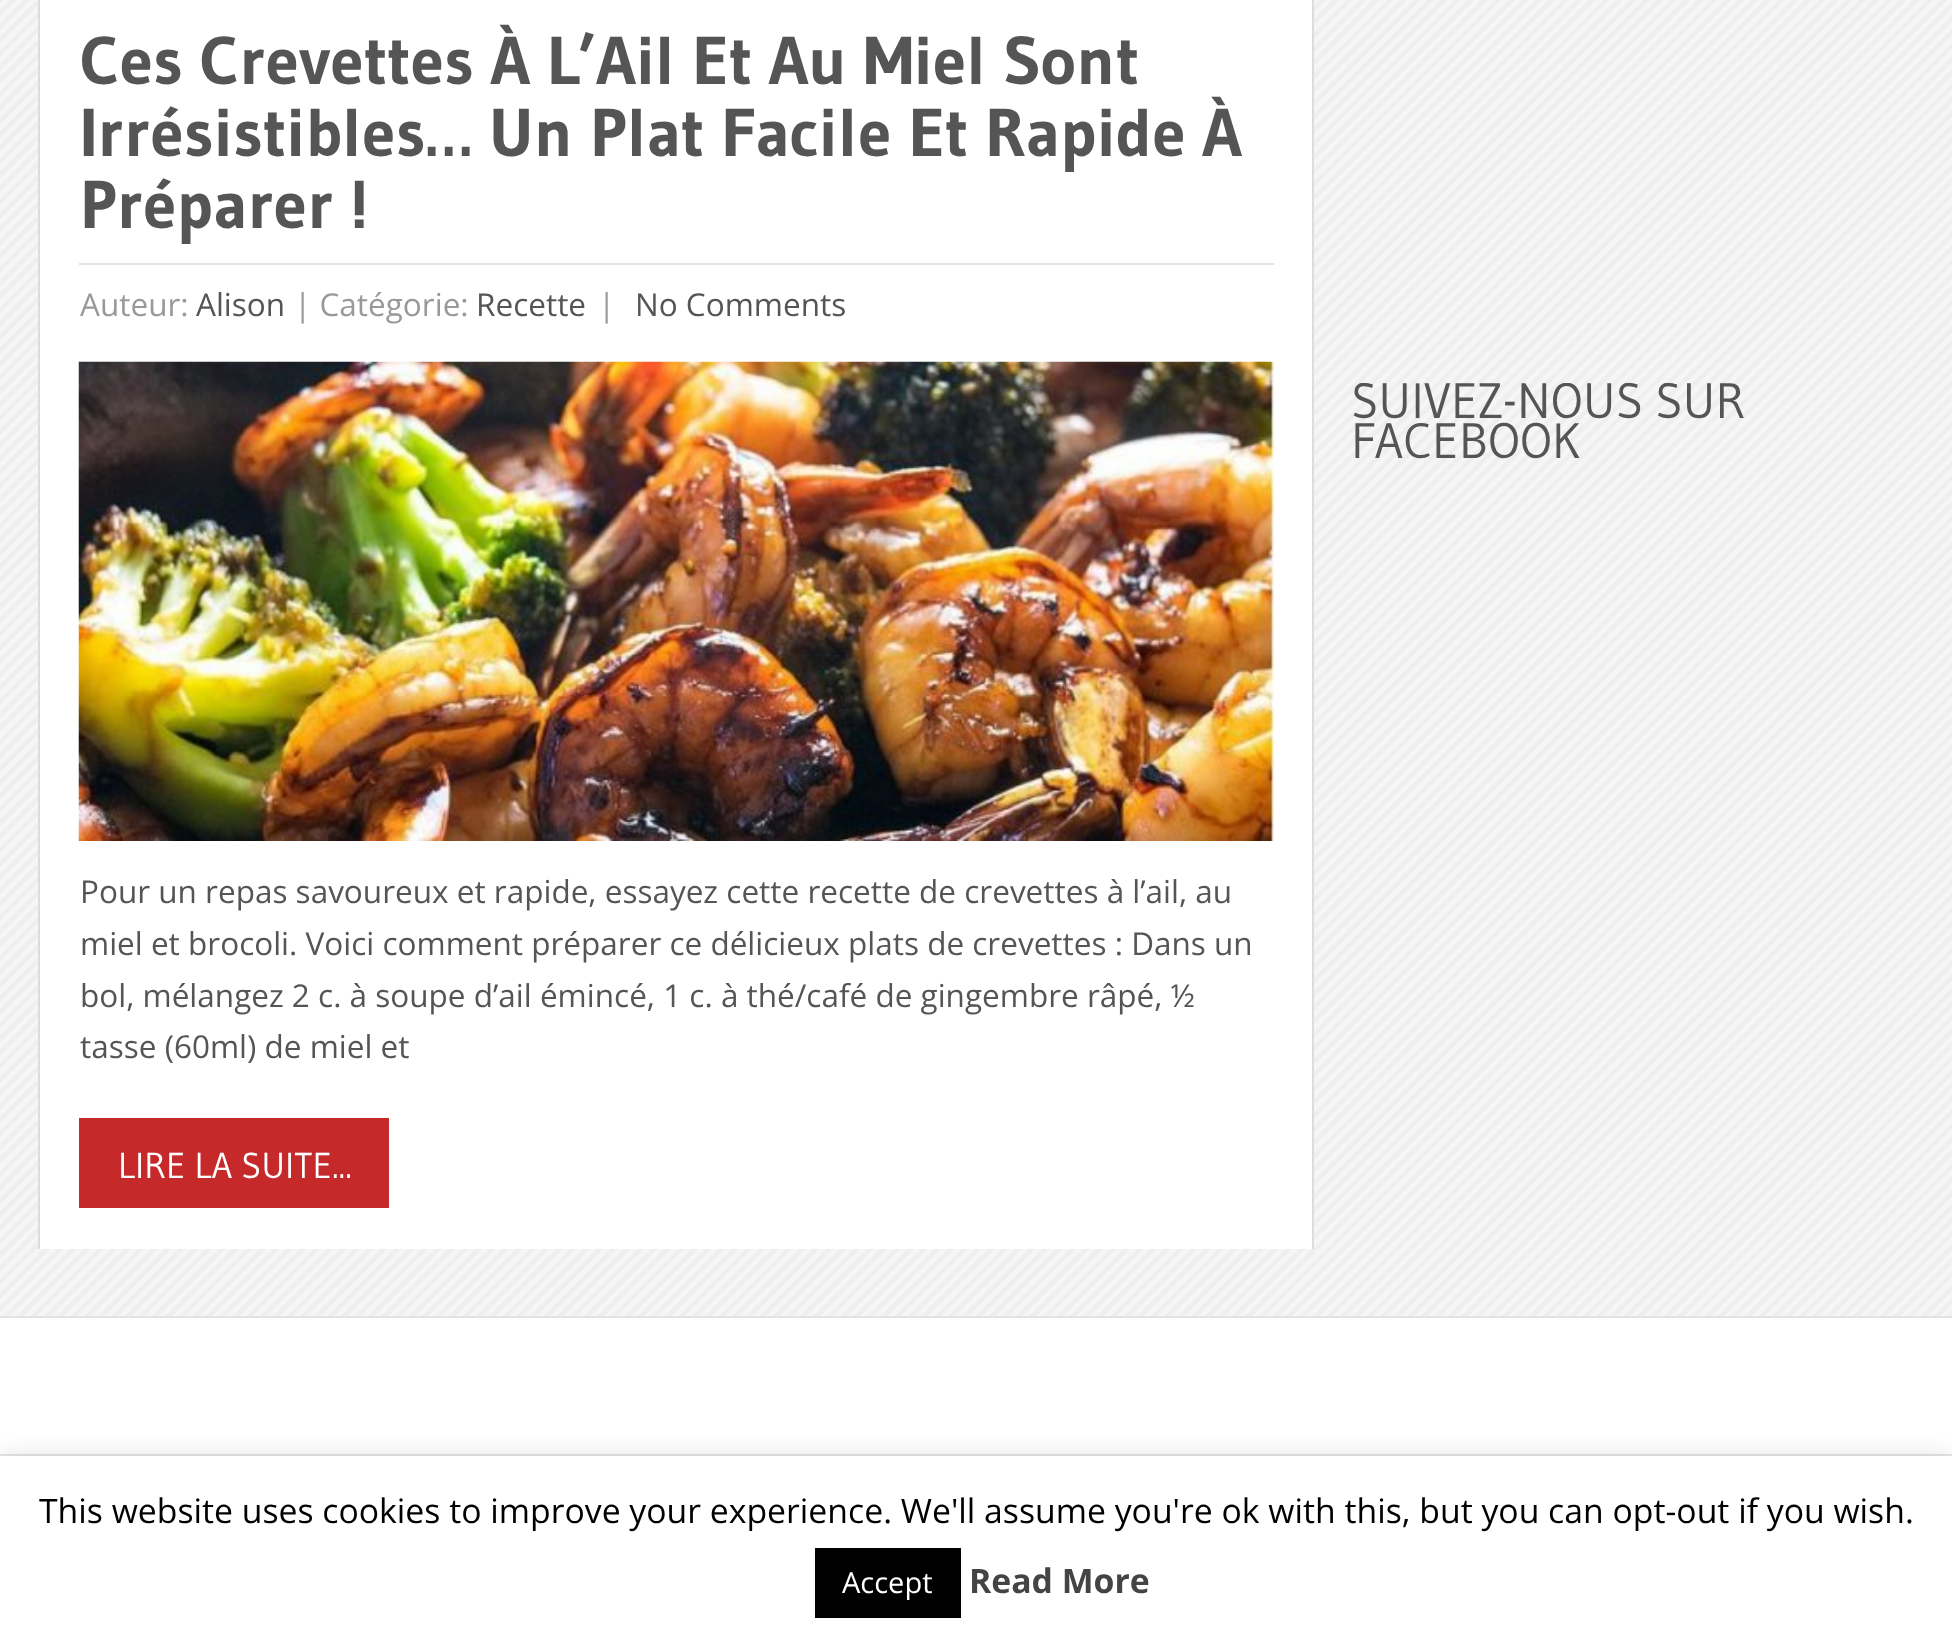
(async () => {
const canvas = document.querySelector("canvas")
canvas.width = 1952
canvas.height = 1643
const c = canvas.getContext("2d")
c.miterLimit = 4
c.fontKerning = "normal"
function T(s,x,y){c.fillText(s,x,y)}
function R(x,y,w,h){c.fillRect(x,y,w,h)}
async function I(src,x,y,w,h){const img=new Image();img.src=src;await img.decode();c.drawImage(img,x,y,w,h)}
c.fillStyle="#f6f6f6"
R(0,0,1952,1643)
await I("1.png",0,0,1952,1316)
c.fillStyle="#fff"
R(40,0,1272,1249)
c.fillStyle="#dcdcdc"
R(1312,0,2,1249)
R(38,0,2,1249)
c.font="bold 67.5px Gudea"
c.fillStyle="#555"
T("Ces Crevettes À L’Ail Et Au Miel Sont",80,84)
T("Irrésistibles… Un Plat Facile Et Rapide À",80,156)
T("Préparer !",80,228)
c.fillStyle="#e2e2e2"
R(79,263,1195,2)
c.font="31.5px Open Sans"
c.fillStyle="#999"
T("Auteur:",80,316)
c.fillStyle="#555"
T("Alison",196,316)
c.fillStyle="#999"
T("| Catégorie:",294,316)
c.fillStyle="#555"
T("Recette",476,316)
c.fillStyle="#999"
T("|",598,316)
c.fillStyle="#555"
T("No Comments",635,316)
await I("2.png",78,361,1196,480)
T("Pour un repas savoureux et rapide, essayez cette recette de crevettes à l’ail, au",80,903)
T("miel et brocoli. Voici comment préparer ce délicieux plats de crevettes : Dans un",80,955)
T("bol, mélangez 2 c. à soupe d’ail émincé, 1 c. à thé/café de gingembre râpé, ½",80,1007)
T("tasse (60ml) de miel et",80,1058)
c.fillStyle="#c62929"
R(79,1118,310,90)
c.font="36px Gudea"
c.fillStyle="#fff"
T("LIRE LA SUITE...",118,1178)
c.save()
c.beginPath()
c.rect(1352,383,563,159)
c.clip()
c.font="49.5px Gudea"
c.fillStyle="#555"
T("SUIVEZ-NOUS SUR",1351,418)
c.restore()
c.font="49.5px Gudea"
c.fillStyle="#555"
T("FACEBOOK",1351,458)
c.fillStyle="#fff"
R(0,1318,1952,136)
c.fillStyle="#e2e3e4"
R(0,1316,1952,2)
R(0,1454,1952,2)
c.fillStyle="#acabab4d"
c.filter="blur(11px)"
c.beginPath()
c.rect(0,1454,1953,189)
c.fill()
c.filter="none"
c.fillStyle="#fff"
R(0,1456,1952,187)
c.font="33.75px Open Sans"
c.fillStyle="#000"
T("This website uses cookies to improve your experience. We'll assume you're ok with this, but you can opt-out if you wish.",39,1523)
R(815,1548,146,70)
c.font="29px Open Sans"
c.fillStyle="#fff"
T("Accept",842,1593)
c.font="bold 33.75px Open Sans"
c.fillStyle="#444"
T("Read More",969,1593)
})()
